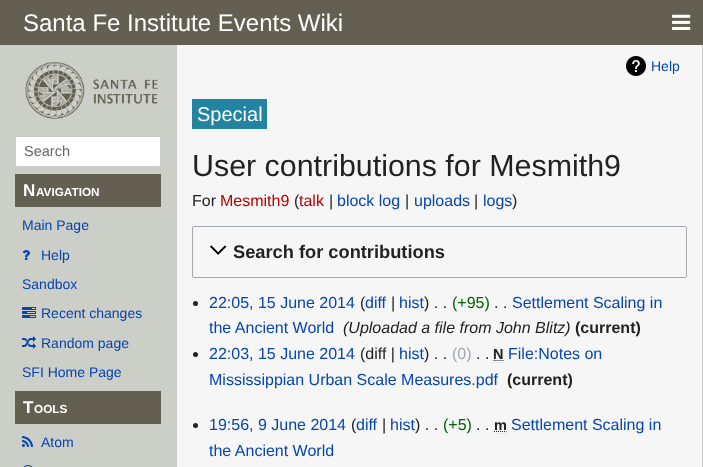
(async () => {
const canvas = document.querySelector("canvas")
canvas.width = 703
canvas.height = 467
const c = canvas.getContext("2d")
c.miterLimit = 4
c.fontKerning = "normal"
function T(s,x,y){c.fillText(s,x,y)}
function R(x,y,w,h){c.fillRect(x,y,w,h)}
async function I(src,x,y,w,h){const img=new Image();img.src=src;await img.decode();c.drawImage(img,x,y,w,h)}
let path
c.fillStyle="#cccec8"
R(0,0,703,467)
c.fillStyle="#636051"
R(0,0,703,45)
c.font="24px Liberation Sans"
c.fillStyle="#fff"
T("Santa Fe Institute Events Wiki",23,31)
await I("1.png",672,14,19,16)
await I("2.png",25,62,133,57)
c.beginPath()
c.rect(15.5,136.5,145,30)
c.fill()
c.strokeStyle="#ccc"
c.stroke()
c.font="14.5px Liberation Sans"
c.fillStyle="#666"
T("Search",24,156)
c.fillStyle="#636051"
R(15,174,146,33)
c.font="bold 17px Liberation Sans"
c.fillStyle="#fff"
T("N",23,196)
c.font="bold 11.75px Liberation Sans"
T("AVIGATION",36,196)
c.font="14px Liberation Sans"
c.fillStyle="#0645ad"
T("Main Page",22,230)
await I("3.png",22,250,8,10)
T("Help",41,260)
T("Sandbox",22,289)
await I("4.png",22,307,14,11)
T("Recent changes",41,318)
await I("5.png",22,336,14,13)
T("Random page",41,348)
T("SFI Home Page",22,377)
c.fillStyle="#636051"
R(15,391,146,33)
c.font="bold 17px Liberation Sans"
c.fillStyle="#fff"
T("T",23,413)
c.font="bold 11.75px Liberation Sans"
T("OOLS",34,413)
await I("6.png",22,436,11,11)
c.font="14px Liberation Sans"
c.fillStyle="#0645ad"
T("Atom",41,447)
await I("7.png",23,465,10,2)
c.fillStyle="#f6f6f6"
R(177,45,525,422)
c.fillStyle="#ccc"
R(702,45,1,422)
R(176,45,1,422)
await I("8.png",626,56,20,20)
c.fillStyle="#0645ad"
T("Help",651,71)
c.fillStyle="#2284a1"
R(192,99,75,30)
c.font="20px Liberation Sans"
c.fillStyle="#fff"
T("Special",197,121)
c.font="30.4px Liberation Sans"
c.fillStyle="#222"
T("User contributions for Mesmith9",192,176)
c.font="16px Liberation Sans"
T("For",192,206)
c.fillStyle="#ba0000"
T("Mesmith9",220,206)
c.fillStyle="#222"
T("(",294,206)
c.fillStyle="#ba0000"
T("talk",299,206)
c.fillStyle="#222"
T("|",329,206)
c.fillStyle="#0645ad"
T("block log",337,206)
c.fillStyle="#222"
T("|",405,206)
c.fillStyle="#0645ad"
T("uploads",414,206)
c.fillStyle="#222"
T("|",474,206)
c.fillStyle="#0645ad"
T("logs",483,206)
c.fillStyle="#222"
T(")",512,206)
c.beginPath()
c.roundRect(192.5,226.5,494,51,1.5)
c.strokeStyle="#a2a9b1"
c.stroke()
await I("9.png",210,245,17,10)
c.font="bold 18.25px Liberation Sans"
T("Search for contributions",233,258)
c.beginPath()
c.arc(195.5,303.5,2.5,0,7)
c.fill()
c.font="16px Liberation Sans"
c.fillStyle="#0645ad"
T("22:05, 15 June 2014",209,308)
c.fillStyle="#222"
T("(",360,308)
c.fillStyle="#0645ad"
T("diff",365,308)
c.fillStyle="#222"
T("|",391,308)
c.fillStyle="#0645ad"
T("hist",399,308)
c.fillStyle="#222"
T(") . .",424,308)
c.fillStyle="#006400"
T("(+95)",452,308)
c.fillStyle="#0645ad"
T("Settlement Scaling in",512,308)
c.fillStyle="#222"
T(". .",494,308)
c.fillStyle="#0645ad"
T("the Ancient World",209,333)
c.font="italic 16px Liberation Sans"
c.fillStyle="#222"
T("(Uploadad a file from John Blitz)",343,333)
c.font="bold 16px Liberation Sans"
T("(current)",575,333)
c.beginPath()
c.arc(195.5,354.5,2.5,0,7)
c.fill()
c.font="16px Liberation Sans"
c.fillStyle="#0645ad"
T("22:03, 15 June 2014",209,359)
c.fillStyle="#222"
T("(diff |",360,359)
c.fillStyle="#0645ad"
T("hist",399,359)
c.fillStyle="#222"
T(") . .",424,359)
c.fillStyle="#a2a9b1"
T("(0)",452,359)
c.font="bold 14.5px Liberation Sans"
c.fillStyle="#222"
T("N",493,359)
path = new Path2D("M493 362.5h11")
c.strokeStyle="#ddd"
c.setLineDash([1,1])
c.stroke(path)
path = new Path2D("M493.5 360.5h10.5")
c.strokeStyle="#222"
c.stroke(path)
c.font="16px Liberation Sans"
c.fillStyle="#0645ad"
T("File:Notes on",508,359)
c.fillStyle="#222"
T(". .",476,359)
c.fillStyle="#0645ad"
T("Mississippian Urban Scale Measures.pdf",209,385)
c.font="bold 16px Liberation Sans"
c.fillStyle="#222"
T("(current)",507,385)
c.beginPath()
c.arc(195.5,425.5,2.5,0,7)
c.fill()
c.font="16px Liberation Sans"
c.fillStyle="#0645ad"
T("19:56, 9 June 2014",209,430)
c.fillStyle="#222"
T("(",351,430)
c.fillStyle="#0645ad"
T("diff",356,430)
c.fillStyle="#222"
T("|",382,430)
c.fillStyle="#0645ad"
T("hist",390,430)
c.fillStyle="#222"
T(") . .",415,430)
c.fillStyle="#006400"
T("(+5)",443,430)
c.font="bold 14.5px Liberation Sans"
c.fillStyle="#222"
T("m",494,430)
path = new Path2D("M494 433.5h13")
c.strokeStyle="#ddd"
c.stroke(path)
path = new Path2D("M494 431.5h12.5")
c.strokeStyle="#222"
c.stroke(path)
c.font="16px Liberation Sans"
c.fillStyle="#0645ad"
T("Settlement Scaling in",511,430)
c.fillStyle="#222"
T(". .",476,430)
c.fillStyle="#0645ad"
T("the Ancient World",209,456)
})()
